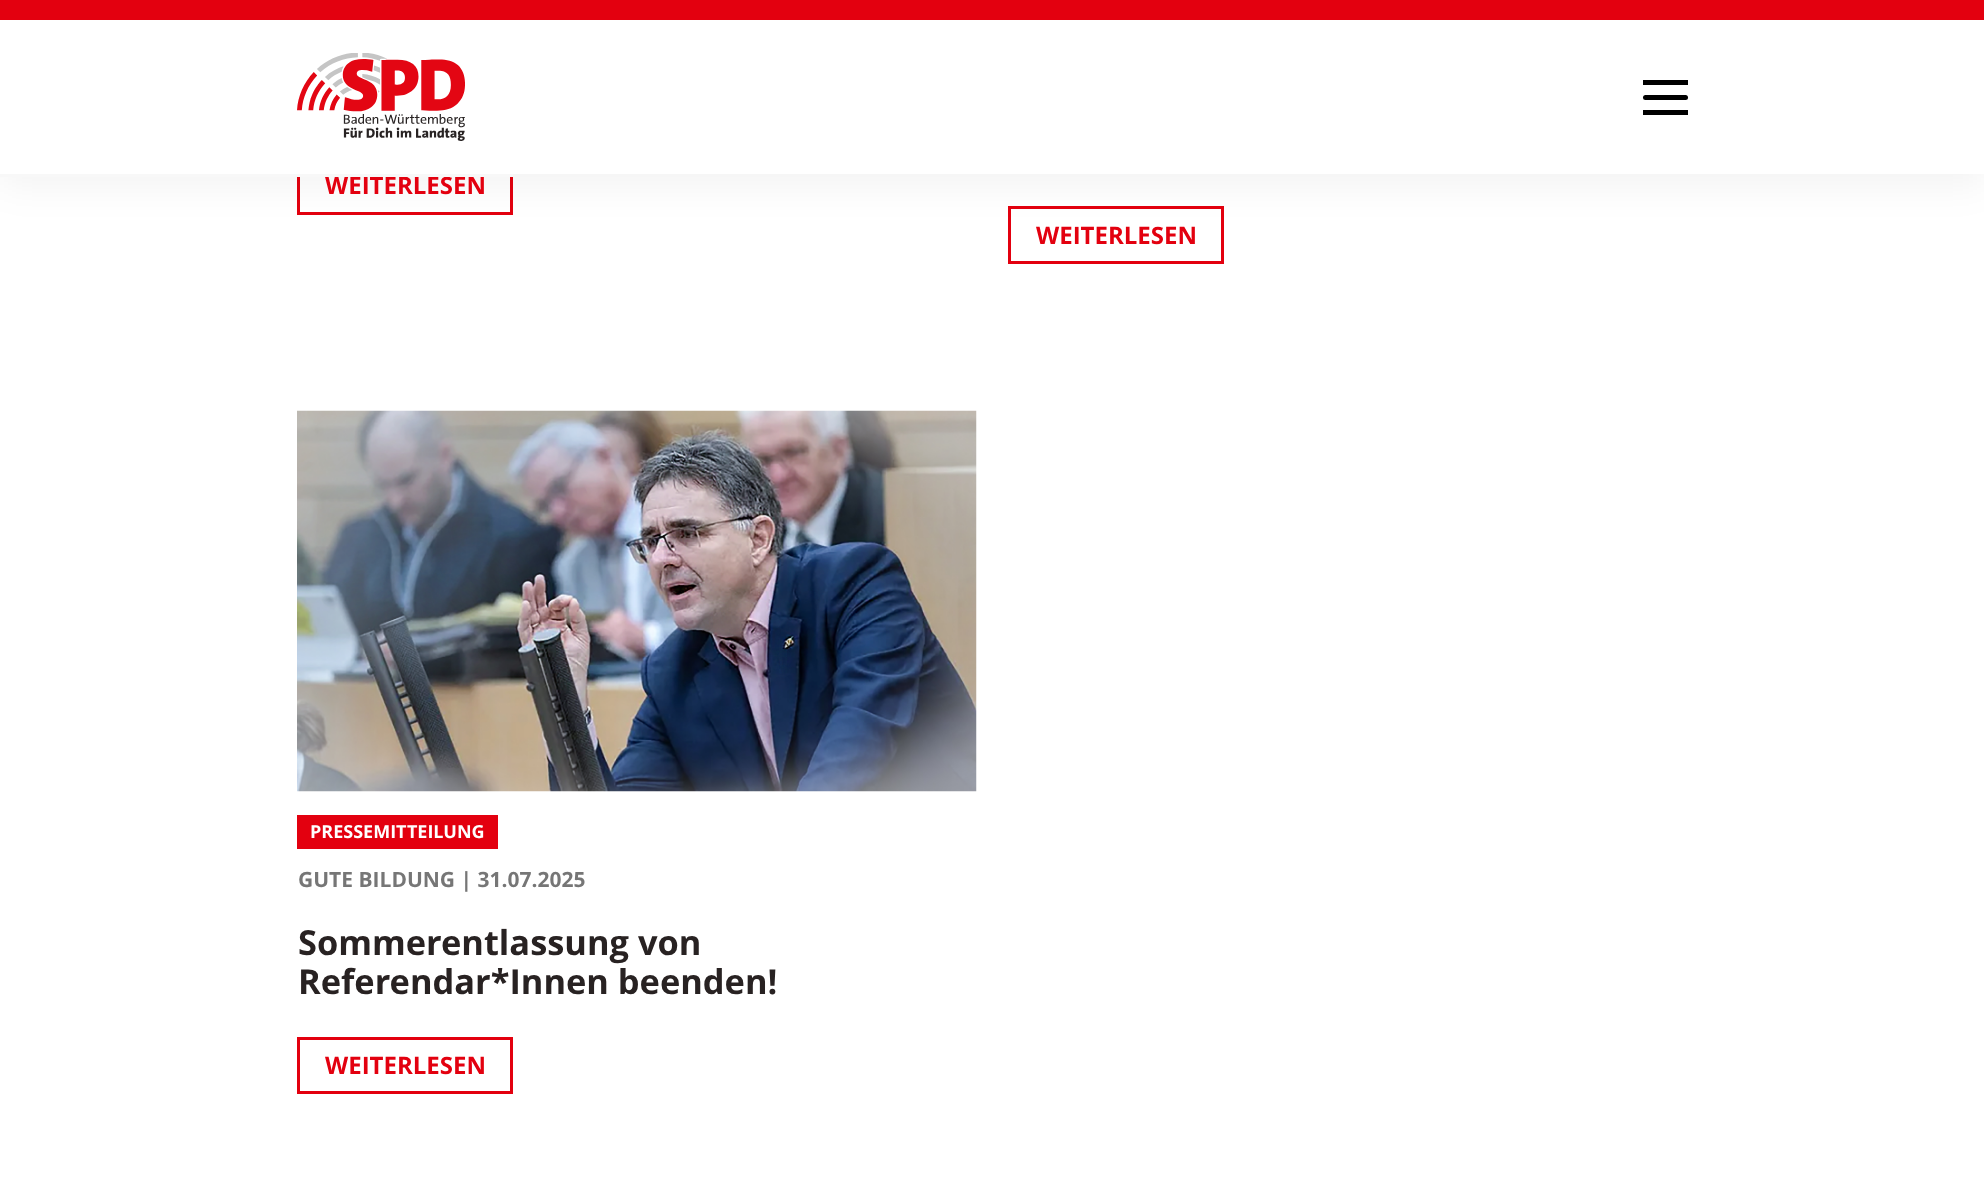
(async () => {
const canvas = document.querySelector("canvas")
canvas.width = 1984
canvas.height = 1202
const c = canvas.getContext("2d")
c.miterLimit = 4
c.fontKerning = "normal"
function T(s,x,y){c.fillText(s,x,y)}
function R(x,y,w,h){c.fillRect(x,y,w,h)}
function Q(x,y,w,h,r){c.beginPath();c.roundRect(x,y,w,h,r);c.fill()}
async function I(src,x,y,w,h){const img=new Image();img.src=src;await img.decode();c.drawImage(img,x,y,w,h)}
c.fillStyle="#fff"
R(0,0,1984,1202)
c.strokeStyle="#e3000f"
c.lineWidth=3
c.strokeRect(298.5,157.5,213,56)
c.strokeRect(1009.5,207.5,213,55)
c.fillStyle="#0000000d"
c.filter="blur(19px)"
c.beginPath()
c.rect(0,8,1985,177)
c.fill()
c.filter="none"
c.fillStyle="#fff"
R(0,20,1984,154)
c.fillStyle="#e3000f"
R(0,0,1984,20)
c.font="bold 24px Open Sans"
T("WEITERLESEN",325,194)
c.fillStyle="#f8f8f8"
R(0,174,513,3)
await I("1.png",297,53,168,88)
c.fillStyle="#000"
Q(1643,95,45,5,2.5)
R(1643,80,45,5)
R(1643,110,45,5)
c.fillStyle="#e3000f"
T("WEITERLESEN",1036,244)
await I("2.png",297,410,680,382)
R(297,815,201,34)
c.font="bold 18px Open Sans"
c.fillStyle="#fff"
T("PRESSEMITTEILUNG",310,838)
c.font="bold 21px Open Sans"
c.fillStyle="#767676"
T("GUTE BILDUNG | 31.07.2025",298,887)
c.font="bold 34.4px Open Sans"
c.fillStyle="#282222"
T("Sommerentlassung von",298,955)
T("Referendar*Innen beenden!",298,994)
c.strokeRect(298.5,1038.5,213,54)
c.font="bold 24px Open Sans"
c.fillStyle="#e3000f"
T("WEITERLESEN",325,1074)
})()
